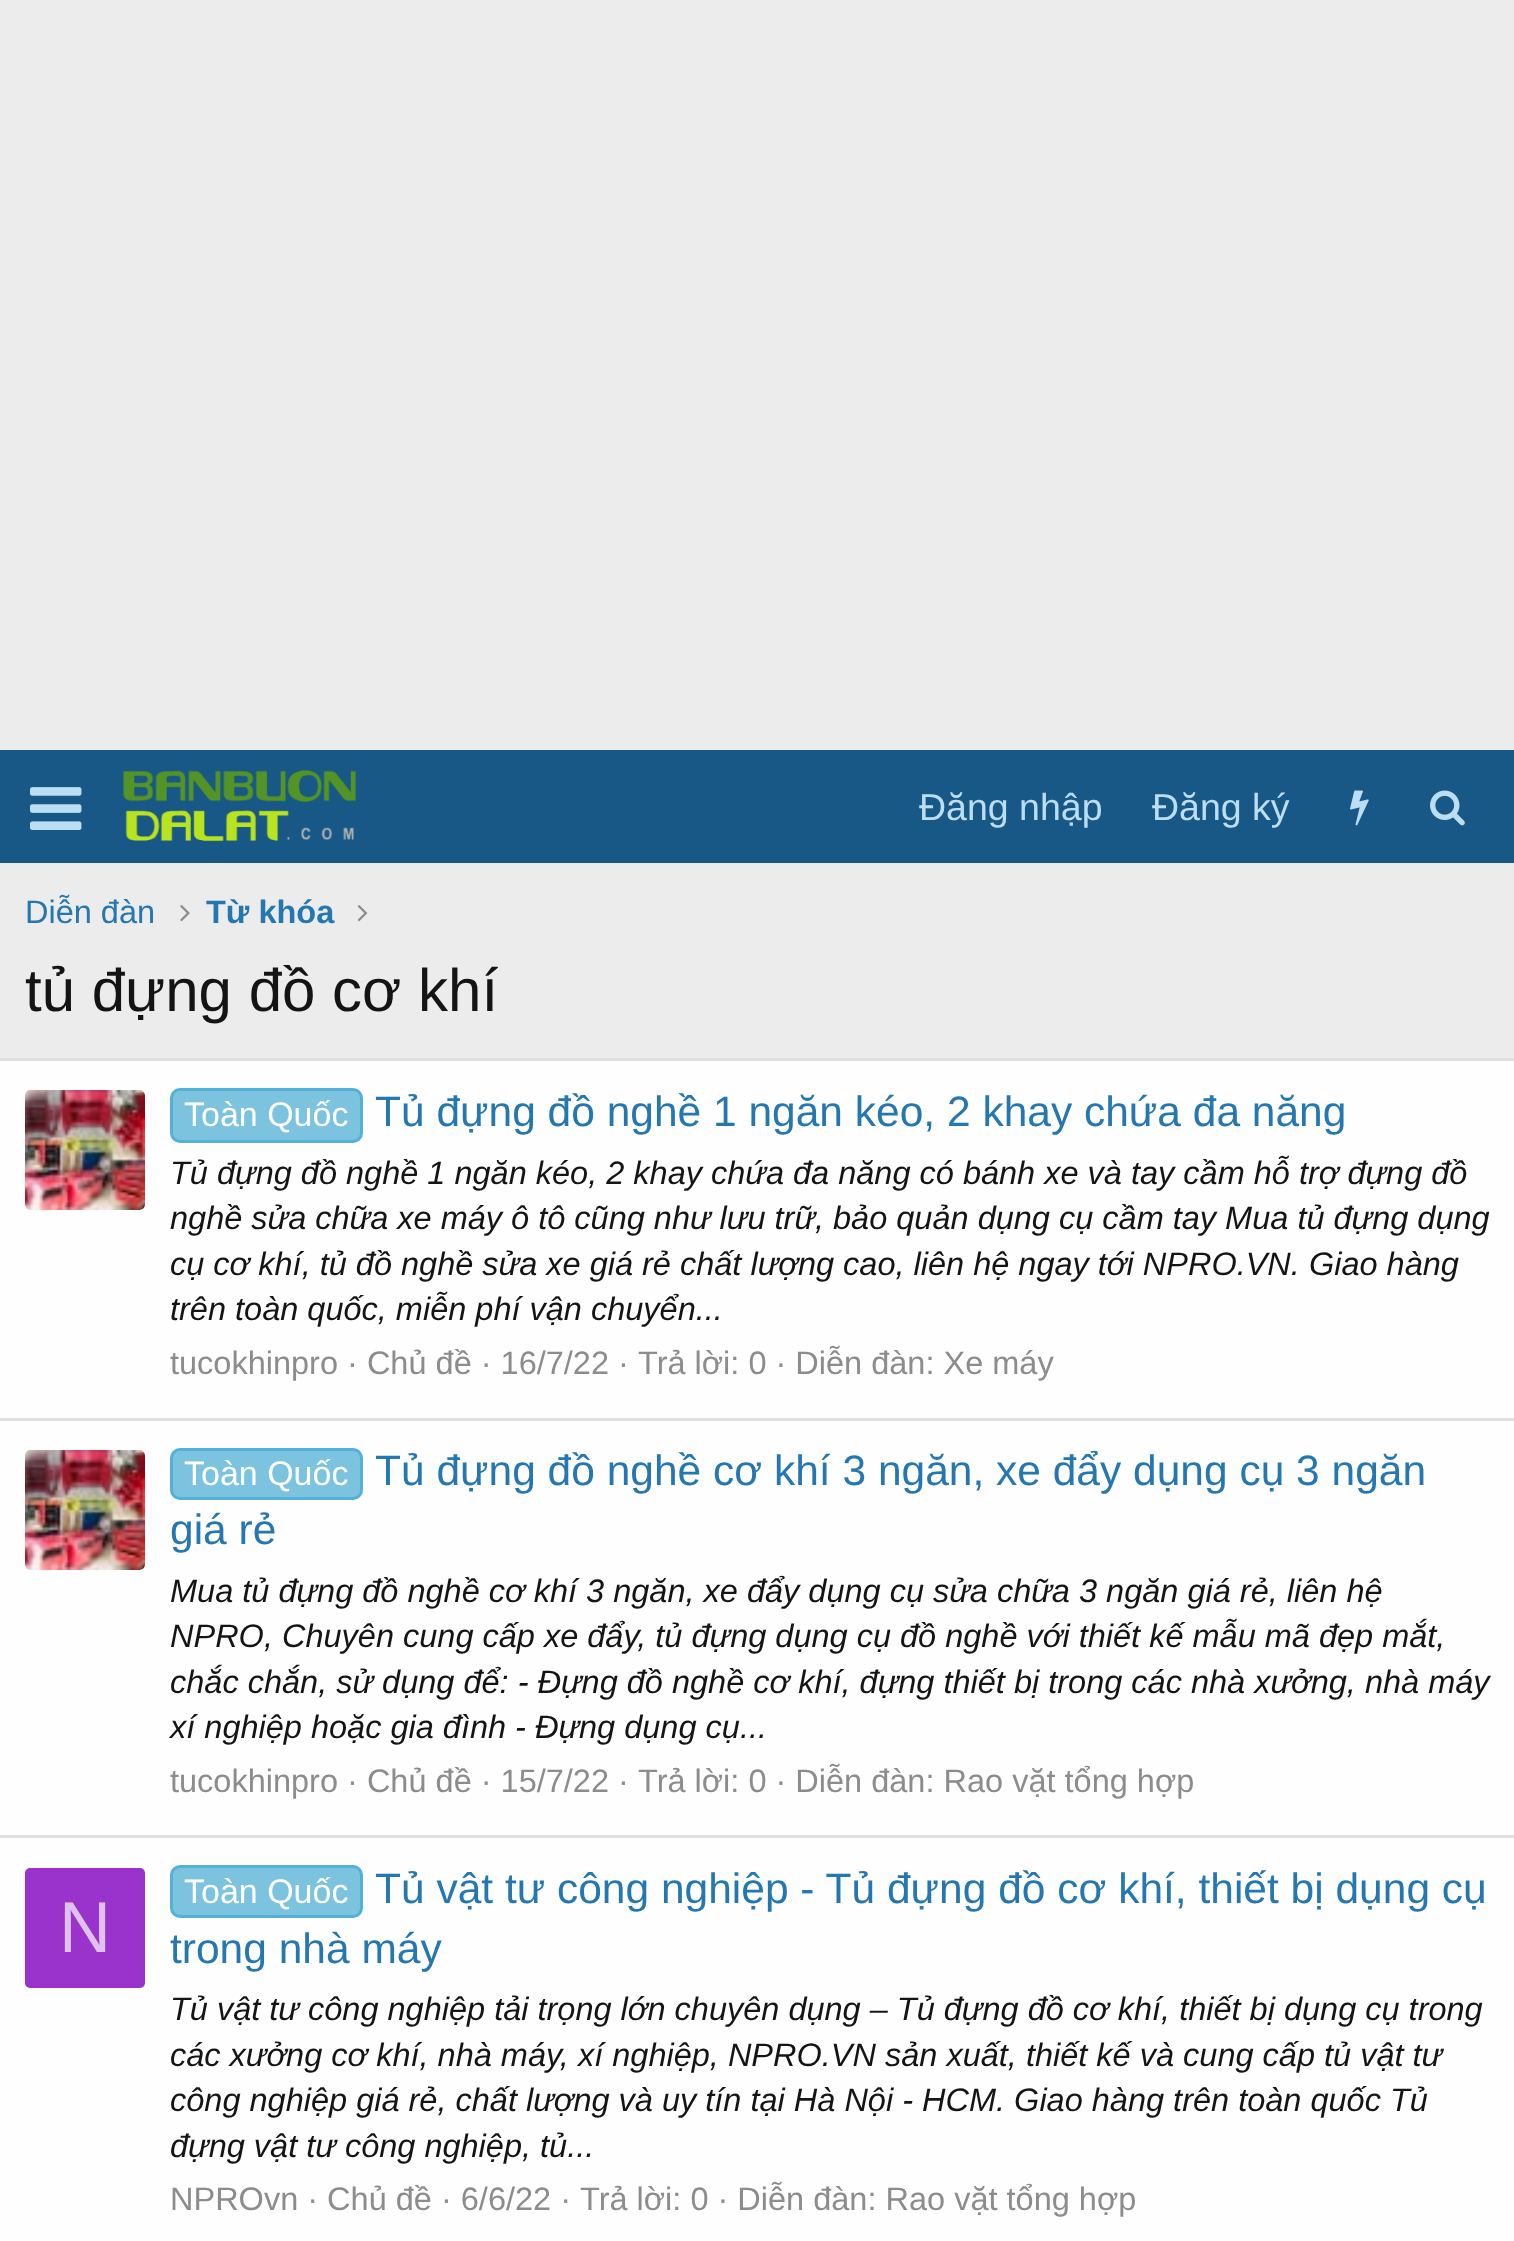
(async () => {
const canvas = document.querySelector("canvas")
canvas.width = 1514
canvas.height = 2241
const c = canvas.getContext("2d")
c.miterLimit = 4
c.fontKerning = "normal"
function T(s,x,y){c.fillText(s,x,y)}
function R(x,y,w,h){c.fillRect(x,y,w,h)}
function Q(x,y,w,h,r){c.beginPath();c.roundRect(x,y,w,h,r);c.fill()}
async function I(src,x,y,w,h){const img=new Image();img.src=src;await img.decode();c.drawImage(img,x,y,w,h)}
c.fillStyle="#ececec"
R(0,0,1514,2241)
c.fillStyle="#185886"
R(0,750,1514,113)
await I("1.png",30,787,52,43)
await I("2.png",123,770,233,72)
c.font="37.5px Liberation Sans"
c.fillStyle="#bcdef5"
T("Đăng nhập",919,820)
T("Đăng ký",1152,820)
await I("3.png",1350,790,19,36)
await I("4.png",1430,790,35,36)
c.font="32.5px Liberation Sans"
c.fillStyle="#2577b1"
T("Diễn đàn",25,923)
await I("5.png",180,905,10,17)
c.font="bold 32.5px Liberation Sans"
T("Từ khóa",206,923)
await I("6.png",357,905,11,17)
c.font="60px Liberation Sans"
c.fillStyle="#141414"
T("tủ đựng đồ cơ khí",25,1011)
c.fillStyle="#fefefe"
R(0,1061,1514,1180)
c.fillStyle="#dfdfdf"
R(0,1058,1514,3)
await I("7.png",25,1090,120,120)
c.fillStyle="#7cc3e0"
c.beginPath()
c.roundRect(171.5,1089.5,190,52,8.5)
c.fill()
c.strokeStyle="#53b0d6"
c.lineWidth=3
c.stroke()
c.font="34px Liberation Sans"
c.fillStyle="#fff"
T("Toàn Quốc",184,1126)
c.font="42.5px Liberation Sans"
c.fillStyle="#2577b1"
T("Tủ đựng đồ nghề 1 ngăn kéo, 2 khay chứa đa năng",375,1126)
c.font="italic 32.5px Liberation Sans"
c.fillStyle="#141414"
T("Tủ đựng đồ nghề 1 ngăn kéo, 2 khay chứa đa năng có bánh xe và tay cầm hỗ trợ đựng đồ",170,1184)
T("nghề sửa chữa xe máy ô tô cũng như lưu trữ, bảo quản dụng cụ cầm tay Mua tủ đựng dụng",170,1229)
T("cụ cơ khí, tủ đồ nghề sửa xe giá rẻ chất lượng cao, liên hệ ngay tới NPRO.VN. Giao hàng",170,1275)
T("trên toàn quốc, miễn phí vận chuyển...",170,1320)
c.font="32.5px Liberation Sans"
c.fillStyle="#8c8c8c"
T("tucokhinpro · Chủ đề · 16/7/22 ·",170,1374)
T("Trả lời: 0 · Diễn đàn: Xe máy",638,1374)
c.fillStyle="#dfdfdf"
R(0,1418,1514,3)
await I("8.png",25,1450,120,120)
c.fillStyle="#7cc3e0"
c.beginPath()
c.roundRect(171.5,1449.5,190,49,8.5)
c.fill()
c.stroke()
c.font="34px Liberation Sans"
c.fillStyle="#fff"
T("Toàn Quốc",184,1485)
c.font="42.5px Liberation Sans"
c.fillStyle="#2577b1"
T("Tủ đựng đồ nghề cơ khí 3 ngăn, xe đẩy dụng cụ 3 ngăn",375,1485)
T("giá rẻ",170,1544)
c.font="italic 32.5px Liberation Sans"
c.fillStyle="#141414"
T("Mua tủ đựng đồ nghề cơ khí 3 ngăn, xe đẩy dụng cụ sửa chữa 3 ngăn giá rẻ, liên hệ",170,1602)
T("NPRO, Chuyên cung cấp xe đẩy, tủ đựng dụng cụ đồ nghề với thiết kế mẫu mã đẹp mắt,",170,1647)
T("chắc chắn, sử dụng để: - Đựng đồ nghề cơ khí, đựng thiết bị trong các nhà xưởng, nhà máy",170,1693)
T("xí nghiệp hoặc gia đình - Đựng dụng cụ...",170,1738)
c.font="32.5px Liberation Sans"
c.fillStyle="#8c8c8c"
T("tucokhinpro · Chủ đề · 15/7/22 ·",170,1792)
T("Trả lời: 0 · Diễn đàn: Rao vặt tổng hợp",638,1792)
c.fillStyle="#dfdfdf"
R(0,1835,1514,3)
c.fillStyle="#93c"
Q(25,1868,120,120,5)
c.font="72px Liberation Sans"
c.fillStyle="#e0c2f0"
T("N",59,1952)
c.fillStyle="#7cc3e0"
c.beginPath()
c.roundRect(171.5,1866.5,190,50,8.5)
c.fill()
c.stroke()
c.font="34px Liberation Sans"
c.fillStyle="#fff"
T("Toàn Quốc",184,1903)
c.font="42.5px Liberation Sans"
c.fillStyle="#2577b1"
T("Tủ vật tư công nghiệp - Tủ đựng đồ cơ khí, thiết bị dụng cụ",375,1903)
T("trong nhà máy",170,1963)
c.font="italic 32.5px Liberation Sans"
c.fillStyle="#141414"
T("Tủ vật tư công nghiệp tải trọng lớn chuyên dụng – Tủ đựng đồ cơ khí, thiết bị dụng cụ trong",170,2020)
T("các xưởng cơ khí, nhà máy, xí nghiệp, NPRO.VN sản xuất, thiết kế và cung cấp tủ vật tư",170,2066)
T("công nghiệp giá rẻ, chất lượng và uy tín tại Hà Nội - HCM. Giao hàng trên toàn quốc Tủ",170,2111)
T("đựng vật tư công nghiệp, tủ...",170,2157)
c.font="32.5px Liberation Sans"
c.fillStyle="#8c8c8c"
T("NPROvn · Chủ đề · 6/6/22 ·",170,2210)
T("Trả lời: 0 · Diễn đàn: Rao vặt tổng hợp",580,2210)
})()
